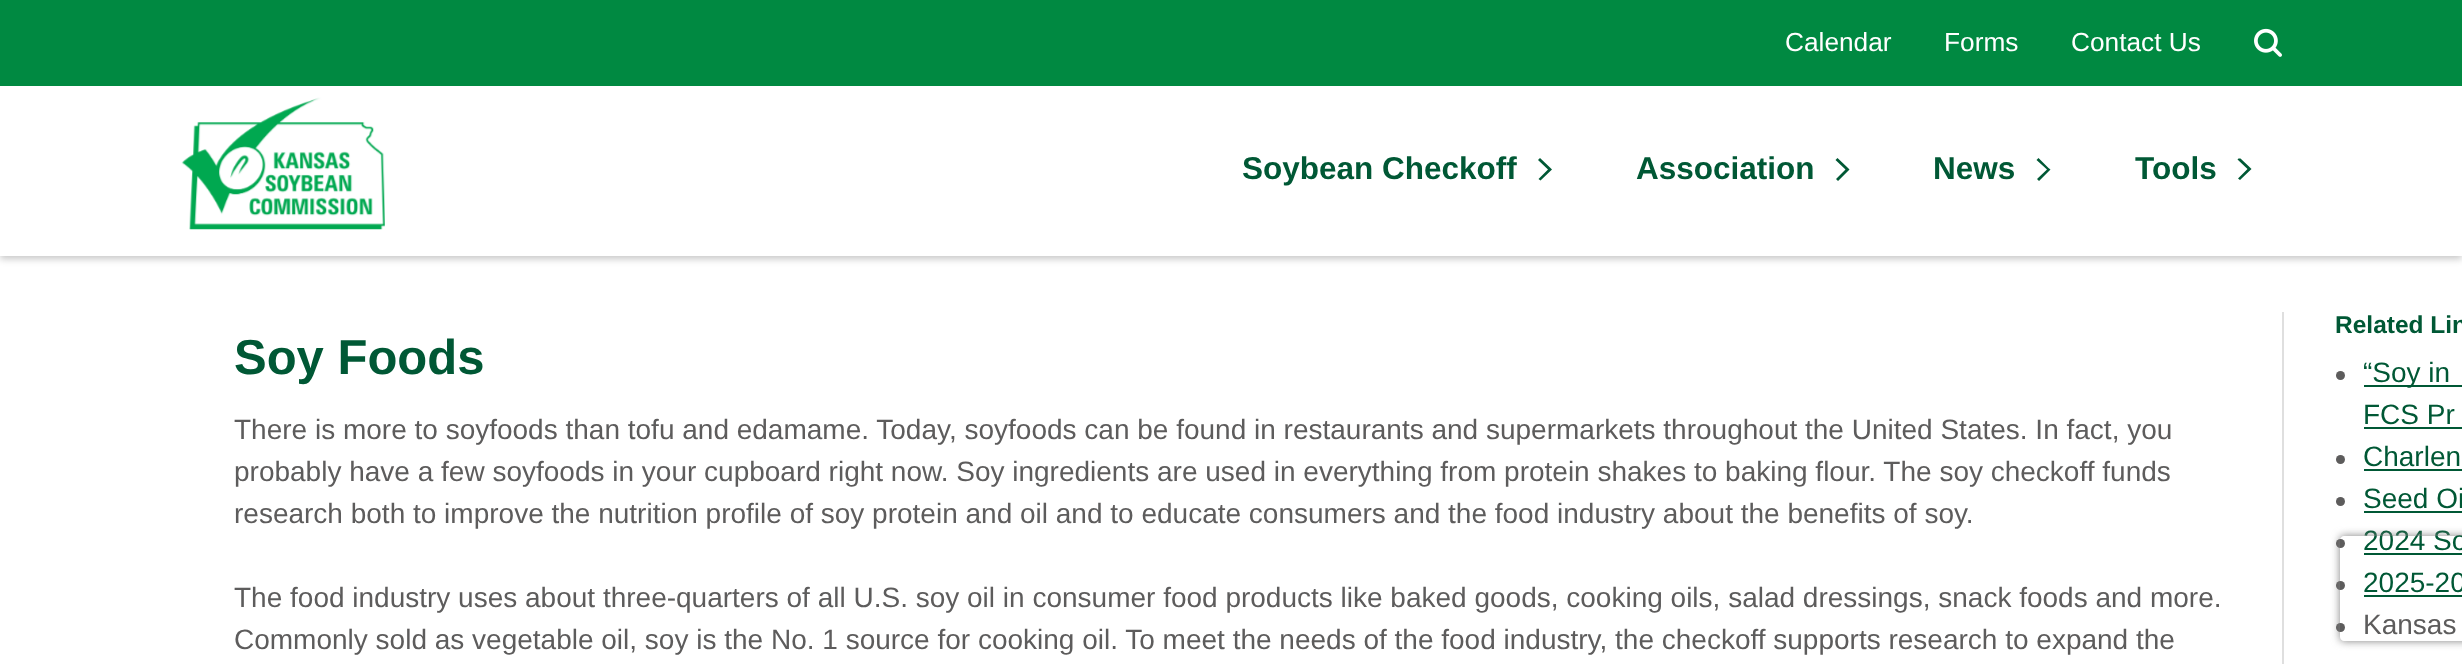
(async () => {
const canvas = document.querySelector("canvas")
canvas.width = 2462
canvas.height = 664
const c = canvas.getContext("2d")
c.miterLimit = 4
c.fontKerning = "normal"
function T(s,x,y){c.fillText(s,x,y)}
function R(x,y,w,h){c.fillRect(x,y,w,h)}
async function I(src,x,y,w,h){const img=new Image();img.src=src;await img.decode();c.drawImage(img,x,y,w,h)}
let path
c.fillStyle="#fff"
R(0,0,2462,664)
c.fillStyle="#00000038"
c.filter="blur(3.5px)"
c.beginPath()
c.rect(0,4,2462,255)
c.fill()
c.filter="none"
c.fillStyle="#fff"
R(0,86,2462,170)
c.fillStyle="#008941"
R(0,0,2462,86)
c.font="26.25px Liberation Sans"
c.fillStyle="#fff"
T("Calendar",1785,51)
T("Forms",1944,51)
T("Contact Us",2071,51)
await I("1.png",2254,28,28,29)
await I("2.png",181,97,204,133)
c.font="bold 31.5px Liberation Sans"
c.fillStyle="#005835"
T("Soybean Checkoff",1242,179)
path = new Path2D("M1550 167.5l-10-9.5l-2 2l10 9.5l-9.5 9.5l2 1.5l11.5-11z")
c.fill(path)
T("Association",1636,179)
path = new Path2D("M1847.5 167.5l-10-9.5l-2 2l10 9.5l-9.5 9.5l2 2l11.5-11.5z")
c.fill(path)
T("News",1933,179)
path = new Path2D("M2048.5 168l-10-10l-2 2l10.5 9.5l-10 9.5l2 2l11.5-11.5z")
c.fill(path)
T("Tools",2135,179)
path = new Path2D("M2249.5 167l2 2l-11.5 11l-2-1.5l9.5-9.5l-10-9.5l1-1h2z")
c.fill(path)
c.font="bold 49px Liberation Sans"
T("Soy Foods",234,374)
c.font="28px Liberation Sans"
c.fillStyle="#5d5c5c"
T("There is more to soyfoods than tofu and edamame. Today, soyfoods can be found in restaurants and supermarkets throughout the United States. In fact, you",234,439)
T("probably have a few soyfoods in your cupboard right now. Soy ingredients are used in everything from protein shakes to baking flour. The soy checkoff funds",234,481)
T("research both to improve the nutrition profile of soy protein and oil and to educate consumers and the food industry about the benefits of soy.",234,523)
T("The food industry uses about three-quarters of all U.S. soy oil in consumer food products like baked goods, cooking oils, salad dressings, snack foods and more.",234,607)
T("Commonly sold as vegetable oil, soy is the No. 1 source for cooking oil. To meet the needs of the food industry, the checkoff supports research to expand the",234,649)
c.fillStyle="#dfdfdf"
R(2282,312,2,352)
c.font="bold 24.5px Liberation Sans"
c.fillStyle="#005835"
T("Related Lin",2335,333)
c.fillStyle="#5d5c5c"
c.beginPath()
c.arc(2340.5,375.5,4.5,0,7)
c.fill()
c.fillStyle="#005835"
R(2364,385,98,2)
c.font="28px Liberation Sans"
T("“Soy in",2363,382)
T("FCS Pr",2363,424)
R(2364,427,98,2)
c.fillStyle="#5d5c5c"
c.beginPath()
c.arc(2340.5,459.5,4.5,0,7)
c.fill()
c.fillStyle="#005835"
T("Charlen",2363,466)
R(2364,469,98,2)
c.fillStyle="#5d5c5c"
c.beginPath()
c.arc(2340.5,501.5,4.5,0,7)
c.fill()
c.fillStyle="#005835"
T("Seed Oi",2363,508)
R(2364,511,98,2)
c.fillStyle="#5d5c5c"
c.beginPath()
c.arc(2340.5,543.5,4.5,0,7)
c.fill()
c.fillStyle="#005835"
T("2024 So",2363,550)
R(2364,553,98,2)
c.fillStyle="#5d5c5c"
c.beginPath()
c.arc(2340.5,585.5,4.5,0,7)
c.fill()
c.fillStyle="#005835"
T("2025-20",2363,592)
R(2364,595,98,2)
c.fillStyle="#5d5c5c"
c.beginPath()
c.arc(2340.5,627.5,4.5,0,7)
c.fill()
T("Kansas",2363,634)
c.save()
path = new Path2D("M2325 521h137v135h-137zm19 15h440c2 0 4 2 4 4v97c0 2-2 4-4 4h-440c-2 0-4-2-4-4v-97c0-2 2-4 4-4z")
c.clip(path,"evenodd")
c.fillStyle="#808080"
c.filter="blur(4.5px)"
c.beginPath()
c.roundRect(2340,536,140,105,4)
c.fill()
c.filter="none"
c.restore()
})()
